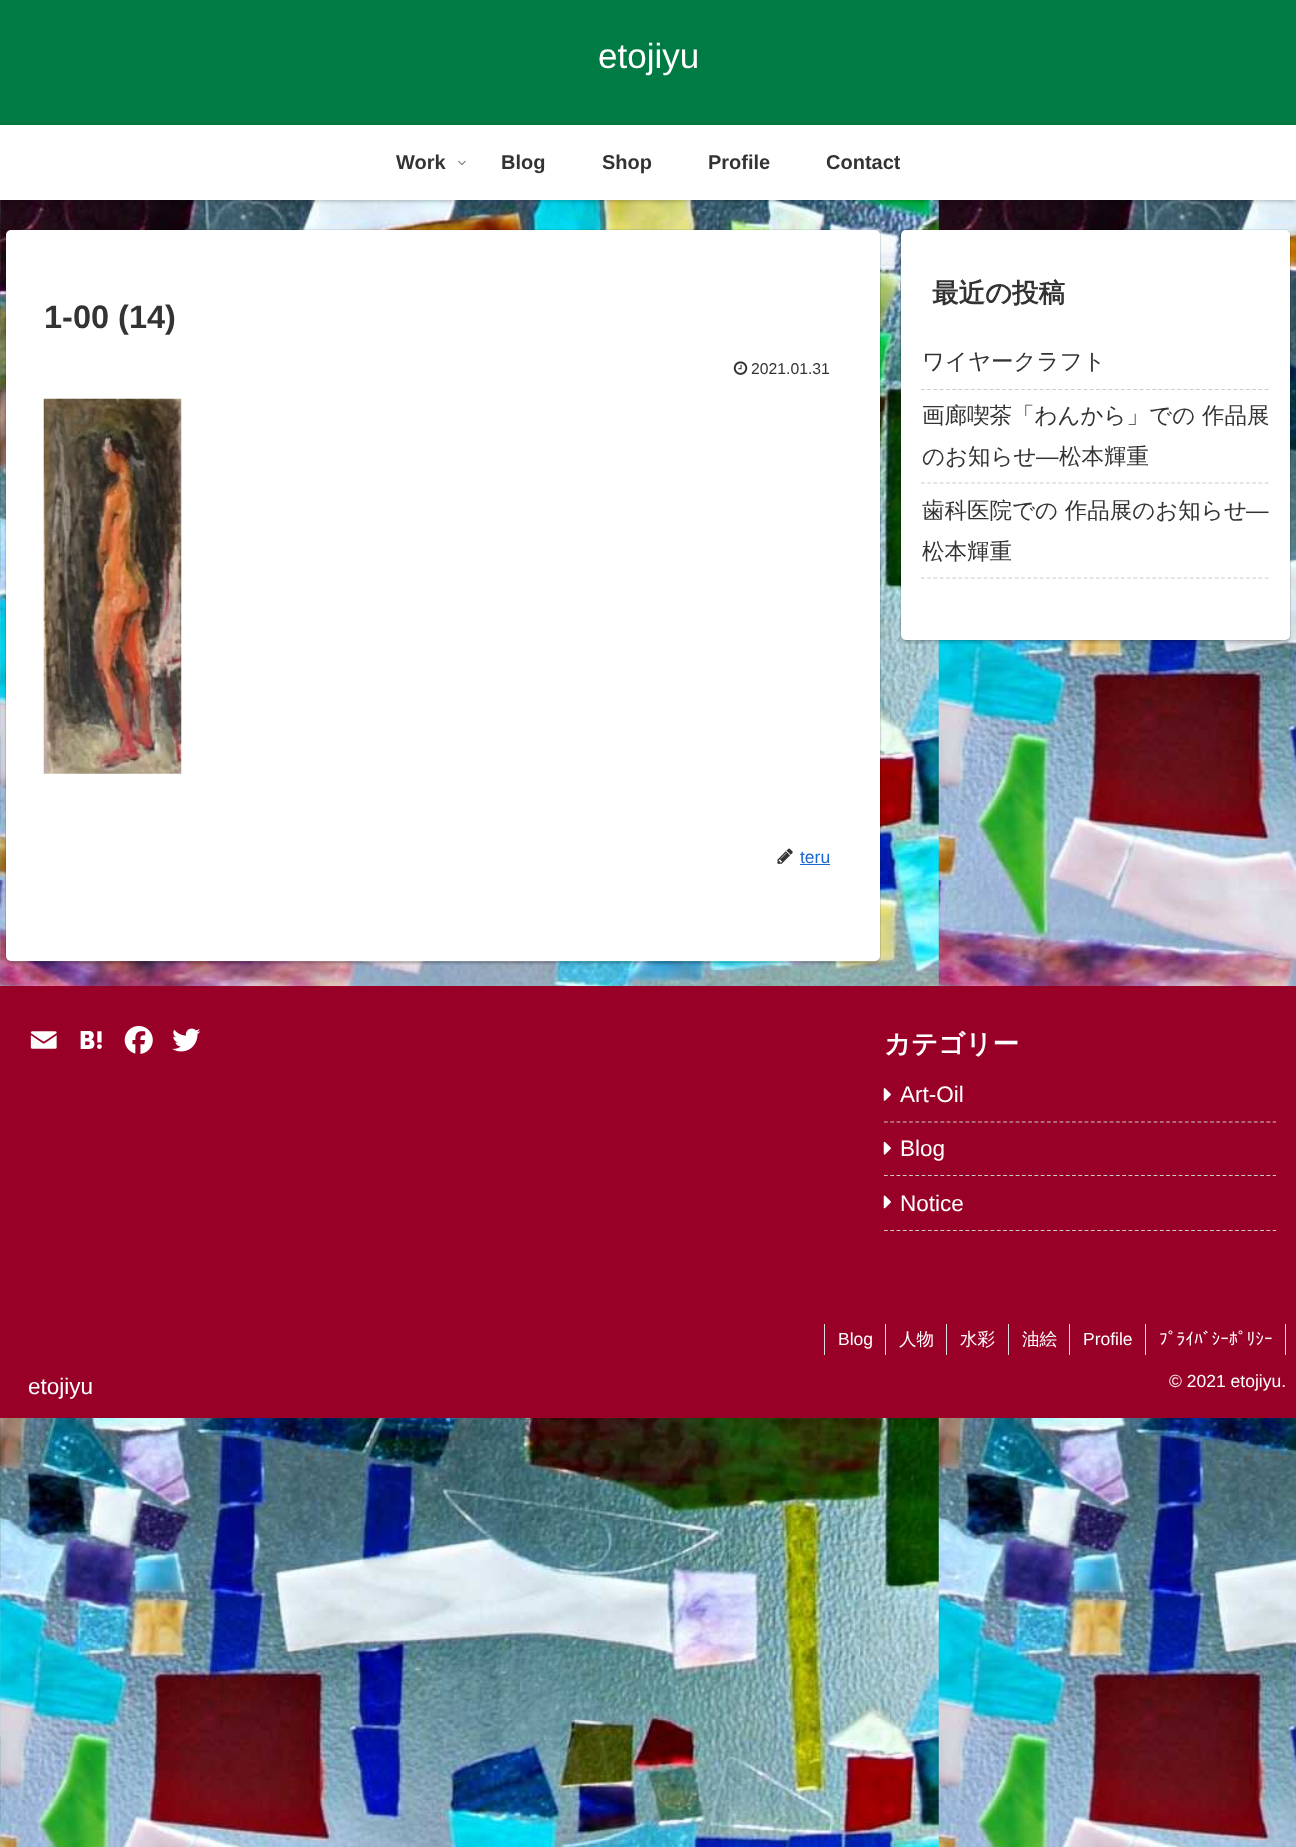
(async () => {
const canvas = document.querySelector("canvas")
canvas.width = 1296
canvas.height = 1847
const c = canvas.getContext("2d")
c.miterLimit = 4
c.fontKerning = "normal"
function T(s,x,y){c.fillText(s,x,y)}
function R(x,y,w,h){c.fillRect(x,y,w,h)}
function Q(x,y,w,h,r){c.beginPath();c.roundRect(x,y,w,h,r);c.fill()}
async function I(src,x,y,w,h){const img=new Image();img.src=src;await img.decode();c.drawImage(img,x,y,w,h)}
let path
c.fillStyle="#fff"
R(0,0,1296,1847)
await I("1.png",0,200,1296,1647)
c.fillStyle="#007b43"
R(0,0,1296,125)
c.font="35px Liberation Sans"
c.fillStyle="#fff"
T("etojiyu",598,68)
c.save()
path = new Path2D("M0 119h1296v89h-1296zm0 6h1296v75h-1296z")
c.clip(path,"evenodd")
c.fillStyle="#00000040"
c.filter="blur(2px)"
c.beginPath()
c.rect(0,126,1296,75)
c.fill()
c.filter="none"
c.restore()
c.font="bold 20px Liberation Sans"
c.fillStyle="#333"
T("Work",396,169)
await I("2.png",458,160,8,6)
T("Blog",501,169)
T("Shop",602,169)
T("Profile",708,169)
c.save()
c.beginPath()
c.rect(826,145,74,36)
c.clip()
T("Contact",826,169)
c.restore()
c.beginPath()
c.roundRect(5.5,229.5,875,733,5.5)
c.strokeStyle="#00000014"
c.stroke()
c.fillStyle="#00000029"
c.filter="blur(1px)"
c.beginPath()
c.roundRect(6,233,874,731,5)
c.fill()
c.filter="none"
c.fillStyle="#fff"
Q(6,230,874,731,5)
c.font="bold 32.5px Liberation Sans"
c.fillStyle="#333"
T("1-00 (14)",44,328)
await I("3.png",733,361,15,14)
c.font="15.75px Liberation Sans"
T("2021.01.31",751,374)
await I("4.png",43,398,139,376)
await I("5.png",777,848,16,16)
c.font="17.5px Liberation Sans"
c.fillStyle="#1967d2"
T("teru",800,863)
R(800,864,30,1)
c.beginPath()
c.roundRect(900.5,229.5,390,411,5.5)
c.stroke()
c.fillStyle="#00000029"
c.filter="blur(1px)"
c.beginPath()
c.roundRect(901,233,389,410,5)
c.fill()
c.filter="none"
c.fillStyle="#fff"
Q(901,230,389,410,5)
c.font="bold 26.5px WenQuanYi Zen Hei"
c.fillStyle="#333"
T("最近の投稿",932,302)
path = new Path2D("M921 389.5h348")
c.strokeStyle="#ccc"
c.lineWidth=1.2
c.setLineDash([3.75,2.5])
c.stroke(path)
c.font="500 22.5px WenQuanYi Zen Hei"
T("ワイヤークラフト",922,369)
path = new Path2D("M921 483h348")
c.stroke(path)
T("画廊喫茶「わんから」での 作品展",922,423)
T("のお知らせ",922,464)
c.font="22.5px Liberation Sans"
T("―",1036,464)
c.font="500 22.5px WenQuanYi Zen Hei"
T("松本輝重",1059,464)
path = new Path2D("M921 578h348")
c.stroke(path)
T("歯科医院での 作品展のお知らせ",922,518)
c.font="22.5px Liberation Sans"
T("―",1246,518)
c.font="500 22.5px WenQuanYi Zen Hei"
T("松本輝重",922,559)
c.fillStyle="#990028"
R(0,986,1296,432)
await I("6.png",30,1031,27,18)
await I("7.png",80,1031,22,18)
await I("8.png",124,1025,29,29)
await I("9.png",172,1028,29,24)
c.font="bold 26.5px WenQuanYi Zen Hei"
c.fillStyle="#fff"
T("カテゴリー",884,1053)
path = new Path2D("M884 1122h392")
c.setLineDash([3.75,2.52])
c.stroke(path)
await I("10.png",883,1088,8,13)
c.font="22.5px Liberation Sans"
T("Art-Oil",900,1102)
path = new Path2D("M884 1175.5h392")
c.stroke(path)
await I("11.png",883,1141,8,14)
T("Blog",900,1156)
path = new Path2D("M884 1230.5h392")
c.stroke(path)
await I("12.png",883,1195,8,14)
T("Notice",900,1211)
T("etojiyu",28,1394)
c.fillStyle="#ddd"
R(824,1324,1,31)
c.font="17.5px Liberation Sans"
c.fillStyle="#fff"
T("Blog",838,1345)
c.fillStyle="#ddd"
R(885,1324,1,31)
c.font="500 17.5px WenQuanYi Zen Hei"
c.fillStyle="#fff"
T("人物",899,1345)
c.fillStyle="#ddd"
R(946,1324,1,31)
c.fillStyle="#fff"
T("水彩",960,1345)
c.fillStyle="#ddd"
R(1008,1324,1,31)
c.fillStyle="#fff"
T("油絵",1022,1345)
c.fillStyle="#ddd"
R(1069,1324,1,31)
c.font="17.5px Liberation Sans"
c.fillStyle="#fff"
T("Profile",1083,1345)
c.fillStyle="#ddd"
R(1285,1324,1,31)
R(1145,1324,1,31)
c.font="17.5px IPAPGothic"
c.fillStyle="#fff"
T("ﾌﾟﾗｲﾊﾞｼｰﾎﾟﾘｼｰ",1159,1345)
c.font="17.5px Liberation Sans"
T("© 2021 etojiyu.",1169,1387)
})()
